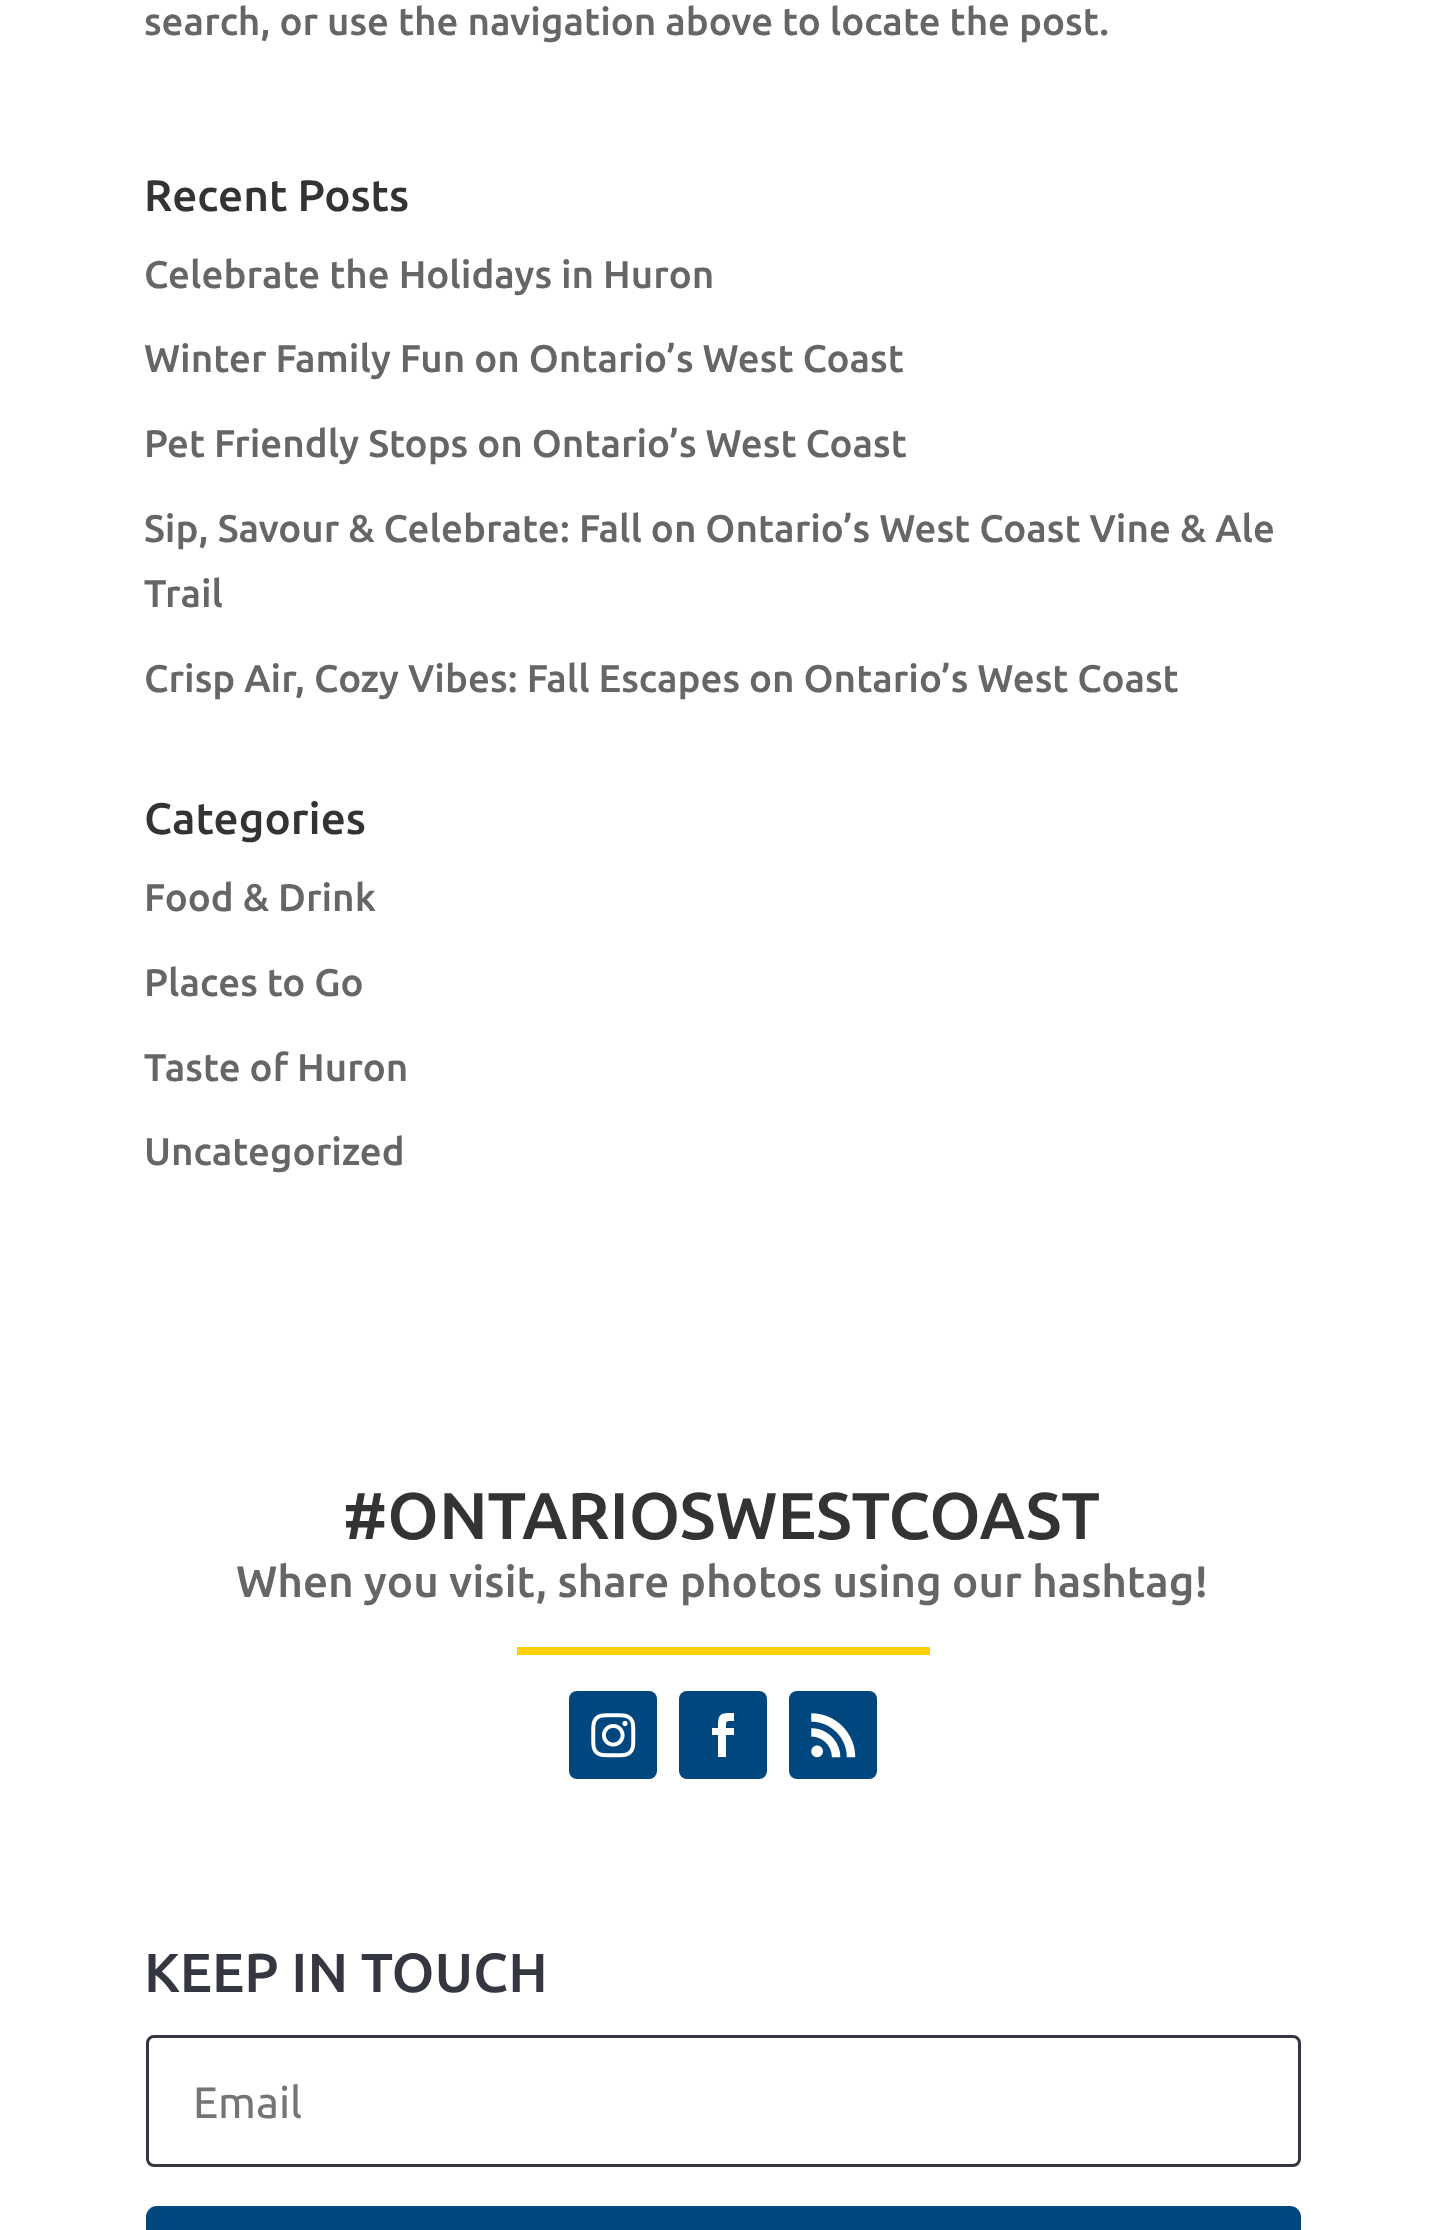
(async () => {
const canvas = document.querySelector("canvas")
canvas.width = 1442
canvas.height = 2230
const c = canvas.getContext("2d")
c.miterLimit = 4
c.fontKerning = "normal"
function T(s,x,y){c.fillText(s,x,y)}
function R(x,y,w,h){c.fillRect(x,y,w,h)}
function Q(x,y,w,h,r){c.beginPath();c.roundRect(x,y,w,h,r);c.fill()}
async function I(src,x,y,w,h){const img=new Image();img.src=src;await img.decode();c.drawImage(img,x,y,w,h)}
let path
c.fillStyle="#fff"
R(0,0,1442,2230)
c.font="500 38.5px Ubuntu"
c.fillStyle="#666"
T("search, or use the navigation above to locate the post.",144,35)
c.font="500 44px Ubuntu"
c.fillStyle="#333"
T("Recent Posts",144,211)
c.font="500 38.5px Ubuntu"
c.fillStyle="#666"
T("Celebrate the Holidays in Huron",144,288)
T("Winter Family Fun on Ontario’s West Coast",144,372)
T("Pet Friendly Stops on Ontario’s West Coast",144,457)
T("Sip, Savour & Celebrate: Fall on Ontario’s West Coast Vine & Ale",144,542)
T("Trail",144,607)
T("Crisp Air, Cozy Vibes: Fall Escapes on Ontario’s West Coast",144,692)
c.font="500 44px Ubuntu"
c.fillStyle="#333"
T("Categories",144,834)
c.font="500 38.5px Ubuntu"
c.fillStyle="#666"
T("Food & Drink",144,911)
T("Places to Go",144,996)
T("Taste of Huron",144,1081)
T("Uncategorized",144,1165)
c.font="500 66px Ubuntu"
c.fillStyle="#333"
T("#ONTARIOSWESTCOAST",343,1539)
c.font="500 44px Ubuntu"
c.fillStyle="#666"
T("When you visit, share photos using our hashtag!",236,1597)
c.fillStyle="#ffcf06"
R(517,1647,413,8)
c.fillStyle="#00477f"
Q(569,1691,88,88,8)
await I("1.png",591,1713,45,45)
Q(679,1691,88,88,8)
c.fillStyle="#fff"
path = new Path2D("M718 1757h8v-22h8v-7h-8c0-8 0-7 8-7v-8c-14 0-16 0-16 15h-6v7h6z")
c.fill(path)
c.fillStyle="#00477f"
Q(789,1691,88,88,8)
await I("2.png",811,1713,45,45)
c.font="500 55px Ubuntu"
c.fillStyle="#353740"
T("KEEP IN TOUCH",144,1992)
c.beginPath()
c.roundRect(147.5,2036.5,1152,129,6.5)
c.strokeStyle="#353740"
c.lineWidth=3
c.stroke()
c.font="44px Ubuntu"
c.fillStyle="#757575"
T("Email",193,2118)
c.fillStyle="#00477f"
Q(146,2206,1155,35,11)
})()
